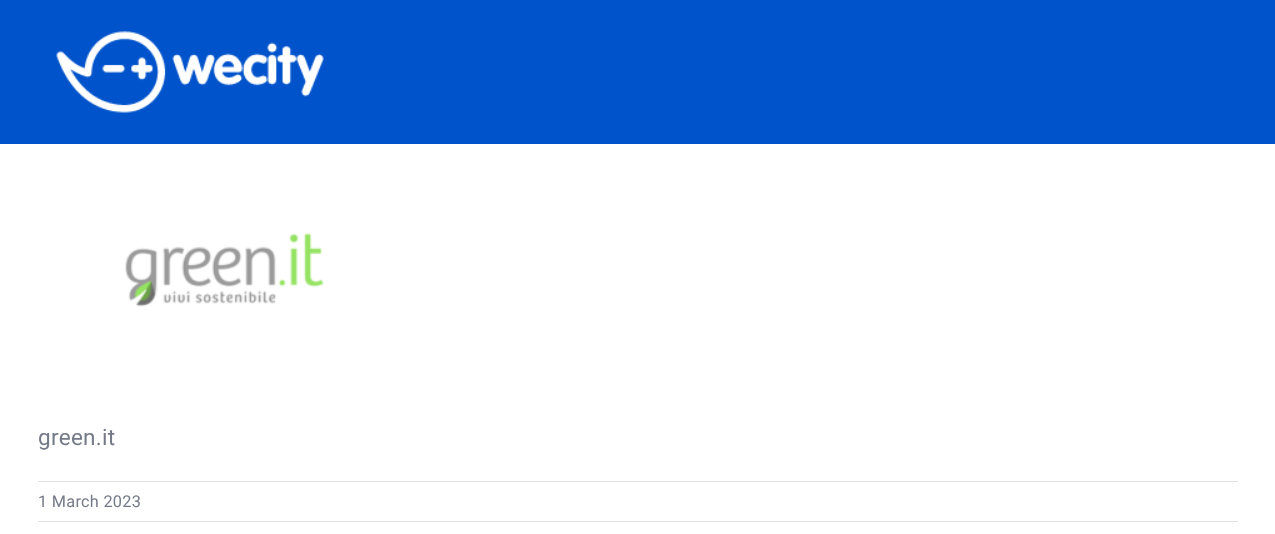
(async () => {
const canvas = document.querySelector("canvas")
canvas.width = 1275
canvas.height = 534
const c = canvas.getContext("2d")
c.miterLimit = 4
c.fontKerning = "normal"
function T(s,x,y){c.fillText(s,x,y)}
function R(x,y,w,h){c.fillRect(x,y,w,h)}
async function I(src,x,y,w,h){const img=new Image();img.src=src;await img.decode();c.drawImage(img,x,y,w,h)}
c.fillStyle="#fff"
R(0,0,1275,534)
c.fillStyle="#0053cb"
R(0,0,1275,144)
await I("1.png",56,31,268,82)
await I("2.png",37,144,376,163)
c.letterSpacing="0.3px"
c.font="22.5px Roboto"
c.fillStyle="#747a87"
T("green.it",38,445)
c.fillStyle="#e0dede"
R(38,481,1200,1)
R(38,521,1200,1)
c.font="16.25px Roboto"
c.fillStyle="#747a87"
T("1 March 2023",38,507)
})()
